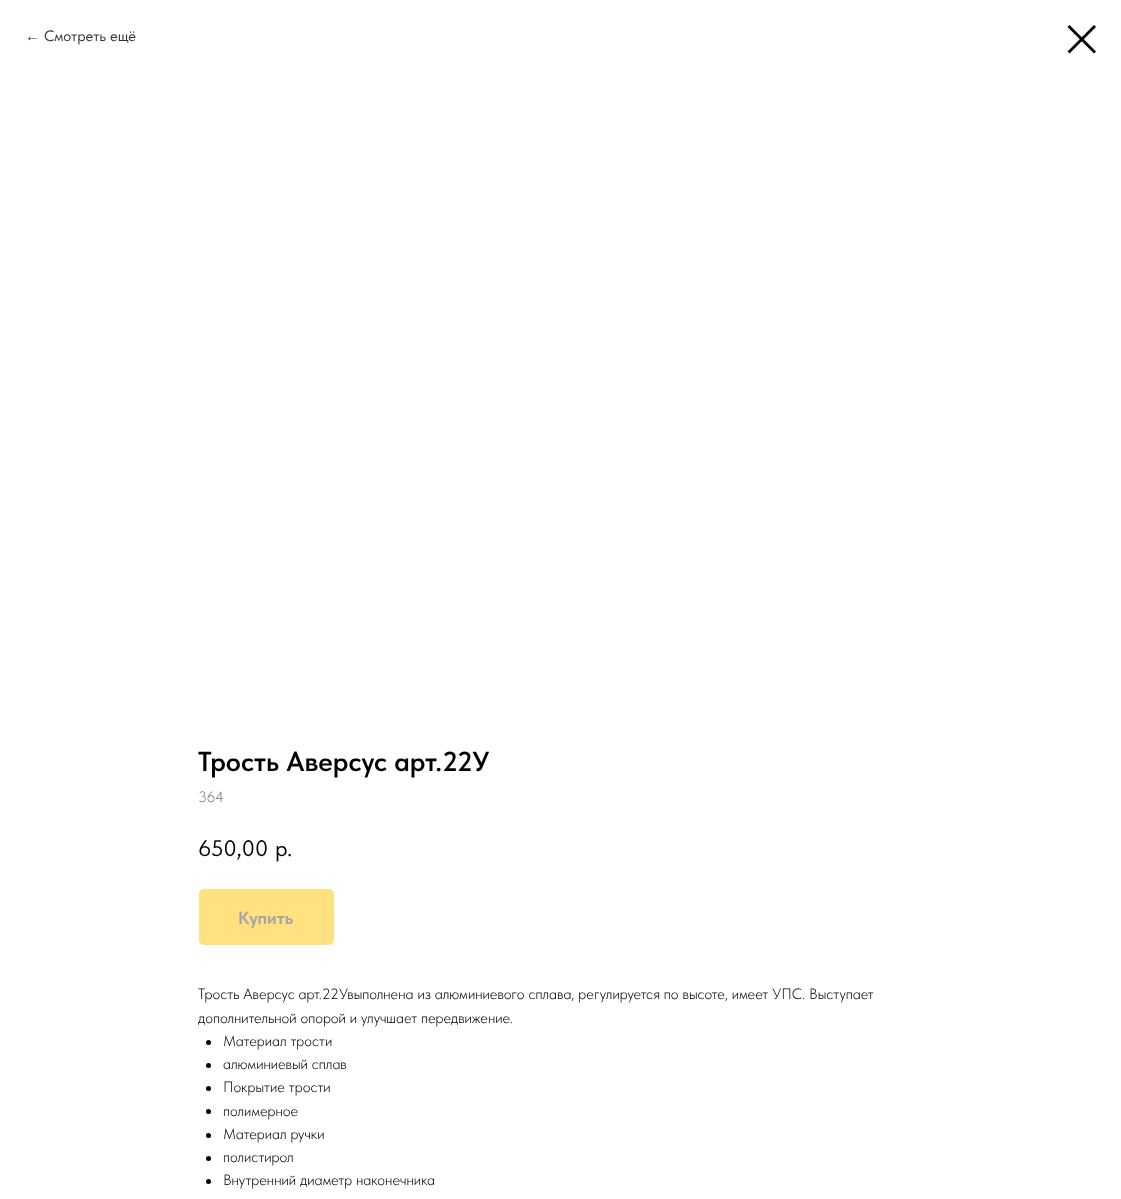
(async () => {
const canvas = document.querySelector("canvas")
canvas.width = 1121
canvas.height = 1199
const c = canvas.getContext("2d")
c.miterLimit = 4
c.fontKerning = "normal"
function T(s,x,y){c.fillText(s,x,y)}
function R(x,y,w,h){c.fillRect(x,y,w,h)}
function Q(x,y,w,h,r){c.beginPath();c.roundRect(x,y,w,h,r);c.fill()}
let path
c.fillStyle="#fff"
R(0,0,1121,1199)
c.font="15px Liberation Sans"
c.fillStyle="#333"
T("←",25,41)
c.font="15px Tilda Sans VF"
T("Смотреть ещё",44,41)
c.fillStyle="#000"
path = new Path2D("M1067.5 27l2-2l26.5 26.5l-2 2z")
c.fill(path,"evenodd")
path = new Path2D("M1094 25l2 2l-26.5 26.5l-2-2z")
c.fill(path,"evenodd")
c.font="600 27.5px Tilda Sans VF"
T("Трость Аверсус арт.22У",198,771)
c.font="300 15px Tilda Sans VF"
c.fillStyle="#777"
T("364",198,802)
c.font="22.5px Tilda Sans VF"
c.fillStyle="#000"
T("650,00",198,856)
T("р.",275,856)
c.fillStyle="#ffe180"
Q(199,889,135,56,5)
c.font="bold 17.5px Tilda Sans VF"
c.fillStyle="#a6a6a6"
T("Купить",238,924)
c.font="300 15px Tilda Sans VF"
c.fillStyle="#000"
T("Трость Аверсус арт.22Увыполнена из алюминиевого сплава, регулируется по высоте, имеет УПС. Выступает",198,999)
T("дополнительной опорой и улучшает передвижение.",198,1023)
c.beginPath()
c.arc(208.5,1042.5,2.5,0,7)
c.fill()
T("Материал трости",223,1046)
c.beginPath()
c.arc(208.5,1065.5,2.5,0,7)
c.fill()
T("алюминиевый сплав",223,1069)
c.beginPath()
c.arc(208.5,1088.5,2.5,0,7)
c.fill()
T("Покрытие трости",223,1092)
c.beginPath()
c.arc(208.5,1111.5,2.5,0,7)
c.fill()
T("полимерное",223,1116)
c.beginPath()
c.arc(208.5,1135.5,2.5,0,7)
c.fill()
T("Материал ручки",223,1139)
c.beginPath()
c.arc(208.5,1158.5,2.5,0,7)
c.fill()
T("полистирол",223,1162)
c.beginPath()
c.arc(208.5,1181.5,2.5,0,7)
c.fill()
T("Внутренний диаметр наконечника",223,1185)
})()
